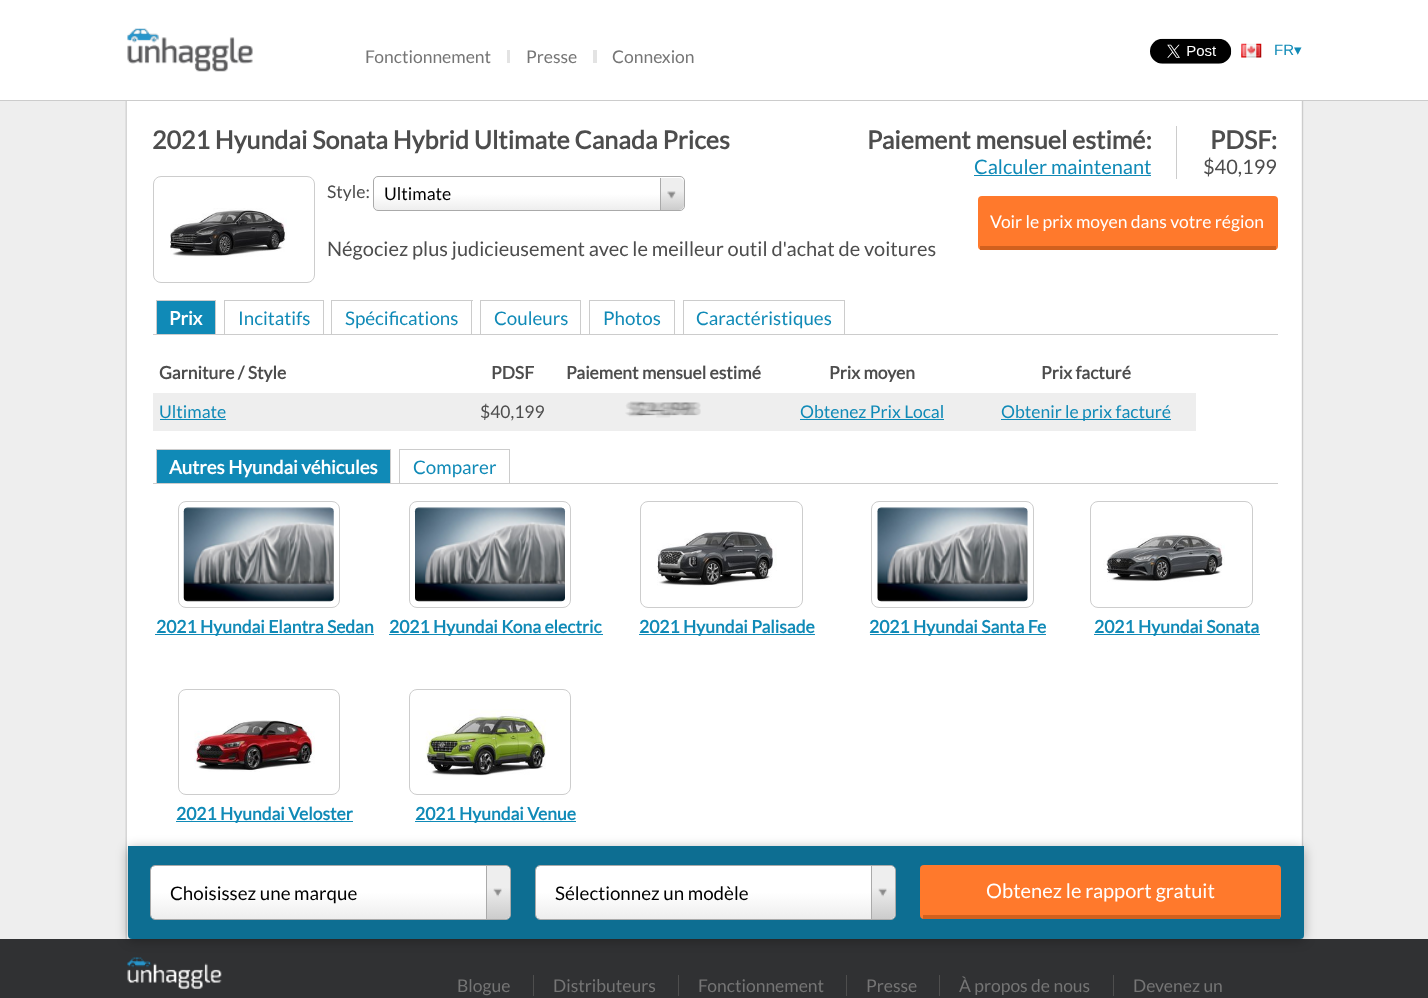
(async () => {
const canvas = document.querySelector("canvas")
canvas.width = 1428
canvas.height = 998
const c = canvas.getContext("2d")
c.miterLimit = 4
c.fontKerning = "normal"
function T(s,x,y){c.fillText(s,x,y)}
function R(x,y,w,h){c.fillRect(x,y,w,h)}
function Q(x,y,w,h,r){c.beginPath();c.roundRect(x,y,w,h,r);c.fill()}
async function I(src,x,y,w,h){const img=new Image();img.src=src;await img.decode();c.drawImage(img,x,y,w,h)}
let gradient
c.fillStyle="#fff"
R(0,0,1428,998)
await I("1.png",127,28,126,44)
c.fillStyle="#e3e3e3"
R(507,50,3,13)
c.font="17.5px Lato"
c.fillStyle="#757575"
T("Fonctionnement",365,63)
c.fillStyle="#e3e3e3"
R(593,50,4,13)
c.fillStyle="#757575"
T("Presse",526,63)
T("Connexion",612,63)
await I("2.png",1150,38,82,26)
await I("3.png",1241,43,21,15)
c.font="15px Liberation Sans"
c.fillStyle="#108ab7"
T("FR",1274,55)
c.font="15px DejaVu Sans"
T("▾",1294,55)
c.fillStyle="#eee"
R(0,101,1428,838)
await I("4.png",125,101,1179,838)
c.fillStyle="#ccc"
R(0,100,1428,1)
c.font="bold 25px Lato"
c.fillStyle="#4d4d4d"
T("2021 Hyundai Sonata Hybrid Ultimate Canada Prices",152,149)
T("Paiement mensuel estimé:",867,149)
c.font="20px Lato"
c.fillStyle="#108ab7"
T("Calculer maintenant",974,174)
R(974,175,177,1)
c.fillStyle="#ccc"
R(1176,126,1,53)
c.font="bold 25px Lato"
c.fillStyle="#4d4d4d"
T("PDSF:",1210,149)
c.font="20px Lato"
T("$40,199",1203,174)
c.fillStyle="#ff792c"
Q(978,196,300,54,4)
c.fillStyle="#d1601e"
R(980,246,296,4)
c.font="17.5px Lato"
c.fillStyle="#fff"
T("Voir le prix moyen dans votre région",990,228)
c.beginPath()
c.roundRect(153.5,176.5,161,106,7.5)
c.strokeStyle="#cdcdcd"
c.stroke()
await I("5.png",170,208,117,49)
c.fillStyle="#4d4d4d"
T("Style:",327,198)
gradient = c.createLinearGradient(374,210,374,178)
gradient.addColorStop(0,"#eee")
gradient.addColorStop(.5,"#fff")
c.fillStyle = gradient
Q(374,178,310,32,4)
c.beginPath()
c.roundRect(373.5,176.5,311,34,4.5)
c.strokeStyle="#aaa"
c.stroke()
c.fillStyle="#000"
T("Ultimate",384,200)
c.save()
c.beginPath()
c.roundRect(374,178,310,32,4)
c.clip()
gradient = c.createLinearGradient(661,210,661,178)
gradient.addColorStop(0,"#ccc")
gradient.addColorStop(.6,"#eee")
c.fillStyle = gradient
c.beginPath()
c.roundRect(660,178,24,32,[0,5,5,0])
c.fill()
c.restore()
c.fillStyle="#aaa"
R(660,178,1,32)
await I("6.png",667,191,9,8)
c.font="20px Lato"
c.fillStyle="#4d4d4d"
T("Négociez plus judicieusement avec le meilleur outil d'achat de voitures",327,256)
c.fillStyle="#ccc"
R(153,334,1125,1)
c.fillStyle="#108ab7"
R(157,301,58,33)
c.fillStyle="#ccc"
R(156,300,60,1)
R(215,300,1,34)
R(156,300,1,34)
c.font="bold 18.75px Lato"
c.fillStyle="#fff"
T("Prix",169,325)
c.fillStyle="#ccc"
R(224,300,100,1)
R(323,300,1,34)
R(224,300,1,34)
c.font="18.75px Lato"
c.fillStyle="#108ab7"
T("Incitatifs",238,325)
c.fillStyle="#ccc"
R(331,300,142,1)
R(471,300,1,34)
R(331,300,1,34)
c.fillStyle="#108ab7"
T("Spécifications",345,325)
c.fillStyle="#ccc"
R(480,300,101,1)
R(580,300,1,34)
R(480,300,1,34)
c.fillStyle="#108ab7"
T("Couleurs",494,325)
c.fillStyle="#ccc"
R(589,300,86,1)
R(674,300,1,34)
R(589,300,1,34)
c.fillStyle="#108ab7"
T("Photos",603,325)
c.fillStyle="#ccc"
R(683,300,162,1)
R(844,300,1,34)
R(683,300,1,34)
c.fillStyle="#108ab7"
T("Caractéristiques",696,325)
c.font="bold 17.5px Lato"
c.fillStyle="#4d4d4d"
T("Garniture / Style",159,379)
T("PDSF",491,379)
T("Paiement mensuel estimé",566,379)
T("Prix moyen",829,379)
T("Prix facturé",1041,379)
c.fillStyle="#eee"
R(153,393,1043,38)
c.font="17.5px Lato"
c.fillStyle="#108ab7"
T("Ultimate",159,418)
R(160,419,66,1)
c.fillStyle="#4d4d4d"
T("$40,199",480,418)
await I("7.png",625,401,76,17)
c.fillStyle="#108ab7"
T("Obtenez Prix Local",800,418)
R(800,419,144,1)
R(1001,419,170,1)
T("Obtenir le prix facturé",1001,418)
c.fillStyle="#ccc"
R(153,483,1125,1)
c.fillStyle="#108ab7"
R(157,450,233,33)
c.fillStyle="#ccc"
R(156,449,235,1)
R(390,449,1,34)
R(156,449,1,34)
c.font="bold 18.75px Lato"
c.fillStyle="#fff"
T("Autres Hyundai véhicules",169,474)
c.fillStyle="#ccc"
R(399,449,111,1)
R(509,449,1,34)
R(399,449,1,34)
c.font="18.75px Lato"
c.fillStyle="#108ab7"
T("Comparer",413,474)
c.beginPath()
c.roundRect(178.5,501.5,161,106,7.5)
c.strokeStyle="#cdcdcd"
c.stroke()
await I("8.png",183,507,151,95)
R(155,634,219,1)
c.font="bold 17.5px Lato"
T("2021 Hyundai Elantra Sedan",156,633)
c.beginPath()
c.roundRect(409.5,501.5,161,106,7.5)
c.stroke()
await I("9.png",414,507,152,95)
R(389,634,214,1)
T("2021 Hyundai Kona electric",389,633)
c.beginPath()
c.roundRect(640.5,501.5,162,106,7.5)
c.stroke()
await I("10.png",657,531,120,55)
R(639,634,176,1)
T("2021 Hyundai Palisade",639,633)
c.beginPath()
c.roundRect(871.5,501.5,162,106,7.5)
c.stroke()
await I("11.png",877,507,151,95)
R(870,634,176,1)
T("2021 Hyundai Santa Fe",869,633)
c.beginPath()
c.roundRect(1090.5,501.5,162,106,7.5)
c.stroke()
await I("12.png",1103,533,122,49)
R(1094,634,166,1)
T("2021 Hyundai Sonata",1094,633)
c.beginPath()
c.roundRect(178.5,689.5,161,105,7.5)
c.stroke()
await I("13.png",194,720,121,52)
R(176,821,177,1)
T("2021 Hyundai Veloster",176,820)
c.beginPath()
c.roundRect(409.5,689.5,161,105,7.5)
c.stroke()
await I("14.png",425,709,121,67)
R(415,821,161,1)
T("2021 Hyundai Venue",415,820)
c.fillStyle="#303133"
R(0,939,1428,59)
await I("16.png",127,957,95,32)
c.fillStyle="#0000004d"
c.filter="blur(6px)"
c.beginPath()
c.roundRect(128,848,1176,92,4)
c.fill()
c.filter="none"
c.fillStyle="#0d6e92"
c.beginPath()
c.roundRect(128,846,1176,93,[0,0,4,4])
c.fill()
gradient = c.createLinearGradient(151,919,151,866)
gradient.addColorStop(0,"#eee")
gradient.addColorStop(.5,"#fff")
c.fillStyle = gradient
Q(151,866,359,53,4)
c.beginPath()
c.roundRect(150.5,865.5,360,54,4.5)
c.strokeStyle="#aaa"
c.stroke()
c.font="18.75px Lato"
c.fillStyle="#000"
T("Choisissez une marque",170,900)
c.save()
c.beginPath()
c.roundRect(151,866,359,53,4)
c.clip()
gradient = c.createLinearGradient(488,919,488,866)
gradient.addColorStop(0,"#ccc")
gradient.addColorStop(.6,"#eee")
c.fillStyle = gradient
c.beginPath()
c.roundRect(486,866,24,53,[0,5,5,0])
c.fill()
c.restore()
c.fillStyle="#aaa"
R(486,866,1,53)
await I("15.png",493,888,9,9)
gradient = c.createLinearGradient(536,919,536,866)
gradient.addColorStop(0,"#eee")
gradient.addColorStop(.5,"#fff")
c.fillStyle = gradient
Q(536,866,359,53,4)
c.beginPath()
c.roundRect(535.5,865.5,360,54,4.5)
c.stroke()
c.fillStyle="#000"
T("Sélectionnez un modèle",555,900)
c.save()
c.beginPath()
c.roundRect(536,866,359,53,4)
c.clip()
gradient = c.createLinearGradient(873,919,873,866)
gradient.addColorStop(0,"#ccc")
gradient.addColorStop(.6,"#eee")
c.fillStyle = gradient
c.beginPath()
c.roundRect(871,866,24,53,[0,5,5,0])
c.fill()
c.restore()
c.fillStyle="#aaa"
R(871,866,1,53)
await I("15.png",878,888,9,9)
c.fillStyle="#ff792c"
Q(920,865,361,54,4)
c.fillStyle="#d1601e"
R(923,915,357,4)
c.font="20px Lato"
c.fillStyle="#fff"
T("Obtenez le rapport gratuit",986,898)
c.font="17.5px Lato"
c.fillStyle="#757575"
T("Blogue",457,992)
T("Distributeurs",553,992)
c.fillStyle="#4e4e4e"
R(533,975,1,21)
c.fillStyle="#757575"
T("Fonctionnement",698,992)
c.fillStyle="#4e4e4e"
R(678,975,1,21)
c.fillStyle="#757575"
T("Presse",866,992)
c.fillStyle="#4e4e4e"
R(846,975,1,21)
c.fillStyle="#757575"
T("À propos de nous",959,992)
c.fillStyle="#4e4e4e"
R(939,975,1,21)
c.fillStyle="#757575"
T("Devenez un",1133,992)
c.fillStyle="#4e4e4e"
R(1113,975,1,21)
})()
